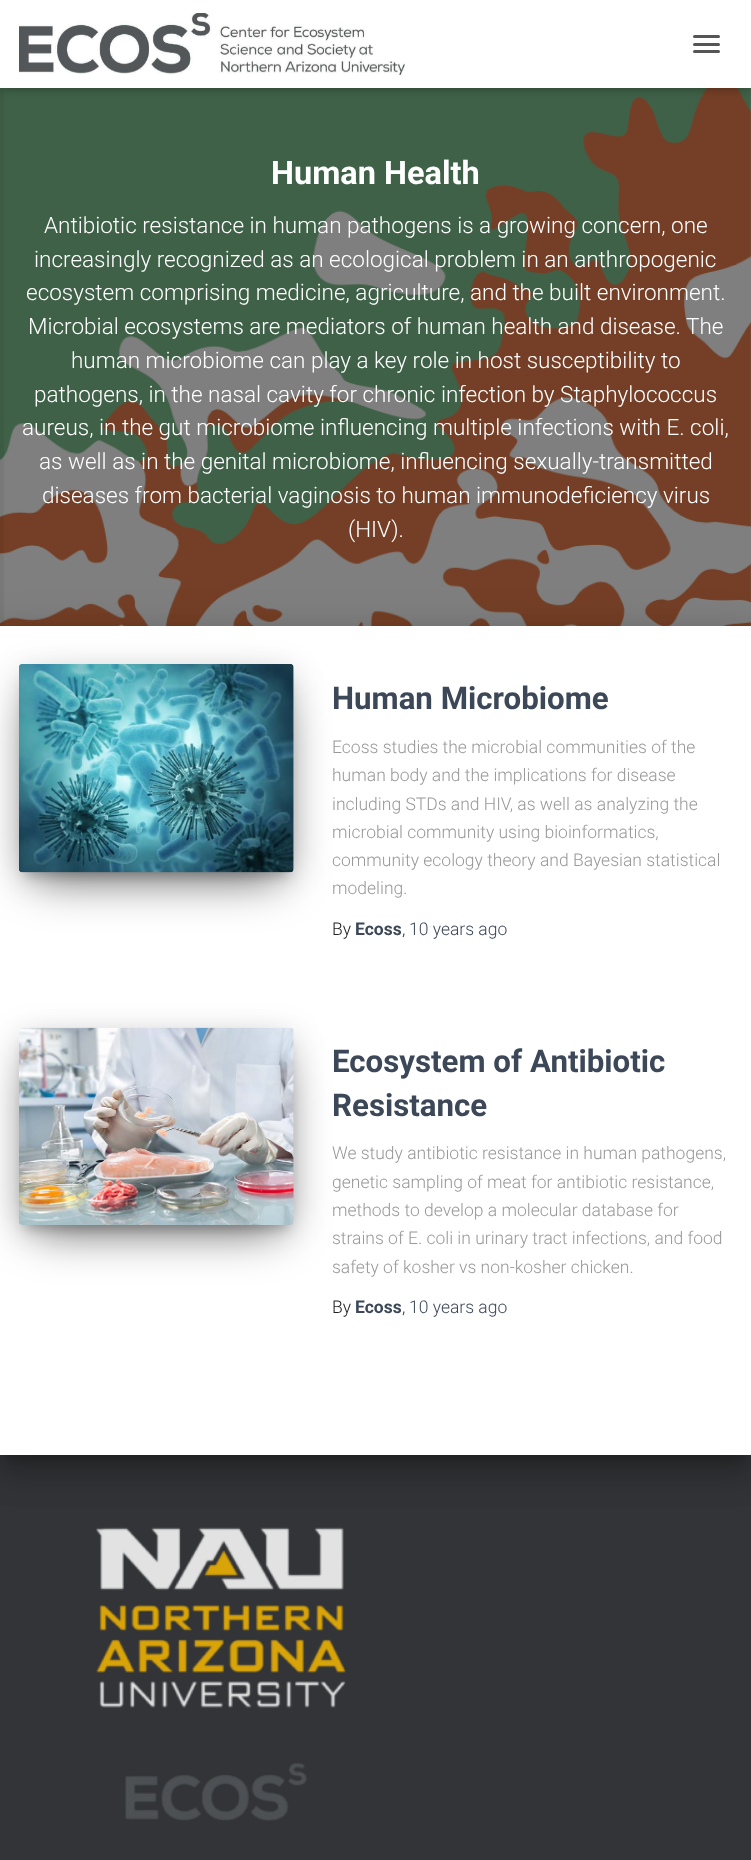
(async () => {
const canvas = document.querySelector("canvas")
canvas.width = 751
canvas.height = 1860
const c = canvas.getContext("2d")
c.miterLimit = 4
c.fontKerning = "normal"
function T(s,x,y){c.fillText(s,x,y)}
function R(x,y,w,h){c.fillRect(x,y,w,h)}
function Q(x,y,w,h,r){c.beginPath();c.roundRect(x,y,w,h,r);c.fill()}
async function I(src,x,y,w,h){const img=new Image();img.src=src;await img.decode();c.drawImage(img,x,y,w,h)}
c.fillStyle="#fff"
R(0,0,751,1860)
await I("1.png",0,88,751,538)
c.fillStyle="#00000080"
R(0,88,751,538)
c.fillStyle="#0000001a"
c.filter="blur(3px)"
c.beginPath()
c.rect(3,8,746,82)
c.fill()
c.filter="none"
c.fillStyle="#0000001f"
c.filter="blur(6px)"
c.beginPath()
c.rect(0,1,751,88)
c.fill()
c.filter="none"
c.fillStyle="#0000006b"
c.filter="blur(6px)"
c.beginPath()
c.rect(8,9,736,72)
c.fill()
c.filter="none"
c.fillStyle="#fff"
R(0,0,751,88)
await I("2.png",19,13,386,62)
c.fillStyle="#555"
Q(693,35,27,3,1.5)
Q(693,43,27,3,1.5)
Q(693,50,27,3,1.5)
c.font="bold 32.5px Roboto"
c.fillStyle="#fff"
T("Human Health",271,184)
c.font="300 22.5px Roboto"
T("Antibiotic resistance in human pathogens is a growing concern, one",44,233)
T("increasingly recognized as an ecological problem in an anthropogenic",34,267)
T("ecosystem comprising medicine, agriculture, and the built environment.",26,300)
T("Microbial ecosystems are mediators of human health and disease. The",28,334)
T("human microbiome can play a key role in host susceptibility to",71,368)
T("pathogens, in the nasal cavity for chronic infection by Staphylococcus",34,402)
T("aureus, in the gut microbiome influencing multiple infections with E. coli,",22,435)
T("as well as in the genital microbiome, influencing sexually-transmitted",39,469)
T("diseases from bacterial vaginosis to human immunodeficiency virus",42,503)
T("(HIV).",348,537)
c.fillStyle="#323437"
R(0,1455,751,405)
c.fillStyle="#00000033"
c.filter="blur(6px)"
c.beginPath()
c.rect(6,643,739,816)
c.fill()
c.filter="none"
c.fillStyle="#0000001f"
c.filter="blur(19px)"
c.beginPath()
c.rect(-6,628,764,841)
c.fill()
c.filter="none"
c.fillStyle="#00000024"
c.filter="blur(15px)"
c.beginPath()
c.rect(-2,644,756,834)
c.fill()
c.filter="none"
c.fillStyle="#fff"
R(0,626,751,829)
c.fillStyle="#00000033"
c.filter="blur(6px)"
c.beginPath()
c.rect(25,680,263,196)
c.fill()
c.filter="none"
c.fillStyle="#0000001f"
c.filter="blur(15.5px)"
c.beginPath()
c.roundRect(19,669,275,209,4)
c.fill()
c.filter="none"
c.fillStyle="#0000008f"
c.filter="blur(24px)"
c.beginPath()
c.rect(34,699,245,179)
c.fill()
c.filter="none"
await I("3.png",19,664,275,209)
c.font="bold 31.25px Roboto"
c.fillStyle="#3c4858"
T("Human Microbiome",332,709)
c.font="300 17.5px Roboto"
c.fillStyle="#999"
T("Ecoss studies the microbial communities of the",332,753)
T("human body and the implications for disease",332,781)
T("including STDs and HIV, as well as analyzing the",332,810)
T("microbial community using bioinformatics,",332,838)
T("community ecology theory and Bayesian statistical",332,866)
T("modeling.",332,894)
c.fillStyle="#212121"
T("By",332,935)
c.font="bold 17.5px Roboto"
c.fillStyle="#3c4858"
T("Ecoss",355,935)
c.font="300 17.5px Roboto"
c.fillStyle="#212121"
T(",",402,935)
c.fillStyle="#3c4858"
T("10 years ago",409,935)
c.fillStyle="#00000033"
c.filter="blur(6px)"
c.beginPath()
c.rect(25,1044,263,185)
c.fill()
c.filter="none"
c.fillStyle="#0000001f"
c.filter="blur(15.5px)"
c.beginPath()
c.roundRect(19,1033,275,197,4)
c.fill()
c.filter="none"
c.fillStyle="#0000008f"
c.filter="blur(24px)"
c.beginPath()
c.rect(34,1063,245,167)
c.fill()
c.filter="none"
await I("4.png",19,1027,275,198)
c.font="bold 31.25px Roboto"
c.fillStyle="#3c4858"
T("Ecosystem of Antibiotic",332,1072)
T("Resistance",332,1116)
c.font="300 17.5px Roboto"
c.fillStyle="#999"
T("We study antibiotic resistance in human pathogens,",332,1159)
T("genetic sampling of meat for antibiotic resistance,",332,1188)
T("methods to develop a molecular database for",332,1216)
T("strains of E. coli in urinary tract infections, and food",332,1244)
T("safety of kosher vs non-kosher chicken.",332,1273)
c.fillStyle="#212121"
T("By",332,1313)
c.font="bold 17.5px Roboto"
c.fillStyle="#3c4858"
T("Ecoss",355,1313)
c.font="300 17.5px Roboto"
c.fillStyle="#212121"
T(",",402,1313)
c.fillStyle="#3c4858"
T("10 years ago",409,1313)
await I("5.png",96,1527,250,294)
})()
